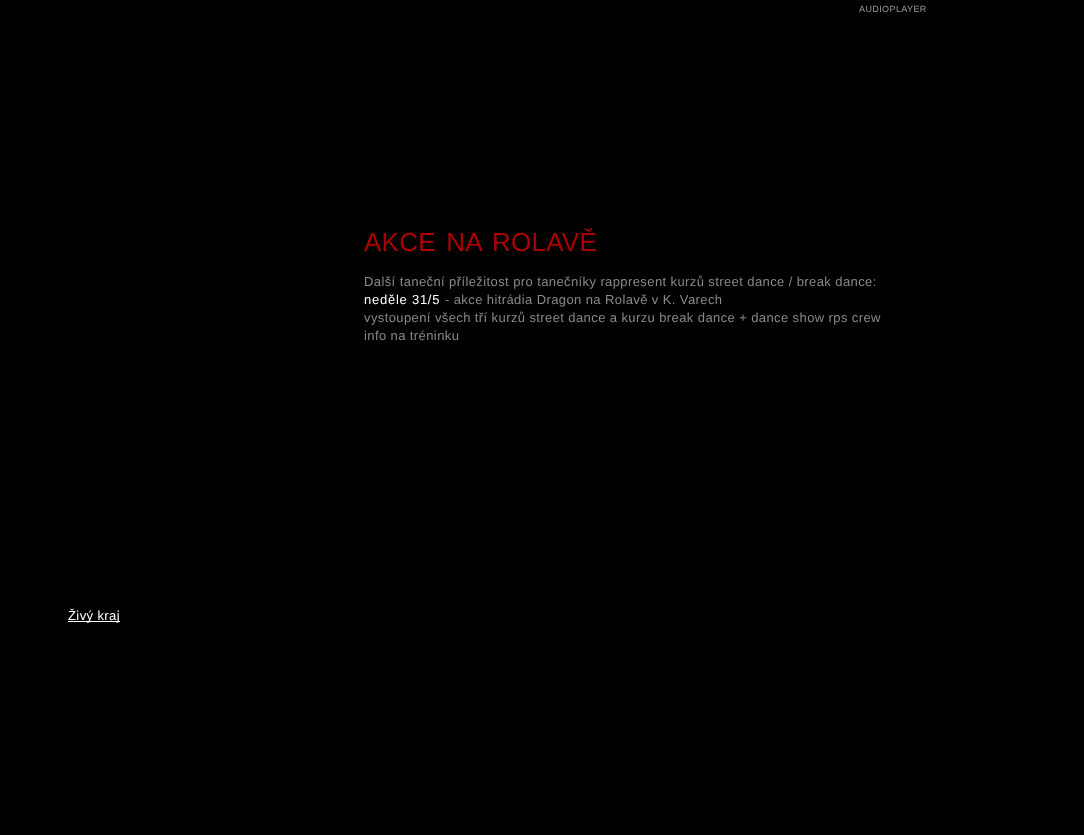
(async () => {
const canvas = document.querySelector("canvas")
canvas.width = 1084
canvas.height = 835
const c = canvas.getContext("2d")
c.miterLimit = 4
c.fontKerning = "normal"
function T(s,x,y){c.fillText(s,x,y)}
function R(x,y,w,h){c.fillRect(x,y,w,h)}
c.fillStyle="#000"
R(0,0,1084,835)
c.letterSpacing="0.4px"
c.font="9px Liberation Sans"
c.fillStyle="#999"
T("AUDIOPLAYER",859,12)
c.letterSpacing="0.25px"
c.wordSpacing="3px"
c.font="26px Liberation Sans"
c.fillStyle="#ac0000"
T("AKCE NA ROLAVĚ",364,251)
c.letterSpacing="0.4px"
c.wordSpacing="0px"
c.font="13px Liberation Sans"
c.fillStyle="#888"
T("Další taneční příležitost pro tanečníky rappresent kurzů street dance / break dance:",364,286)
c.letterSpacing="0.75px"
c.fillStyle="#fff"
T("neděle 31/5",364,304)
c.letterSpacing="0.4px"
c.fillStyle="#888"
T("- akce hitrádia Dragon na Rolavě v K. Varech",445,304)
T("vystoupení všech tří kurzů street dance a kurzu break dance + dance show rps crew",364,322)
T("info na tréninku",364,340)
c.fillStyle="#fff"
R(68,621,52,1)
T("Živý kraj",68,620)
})()
